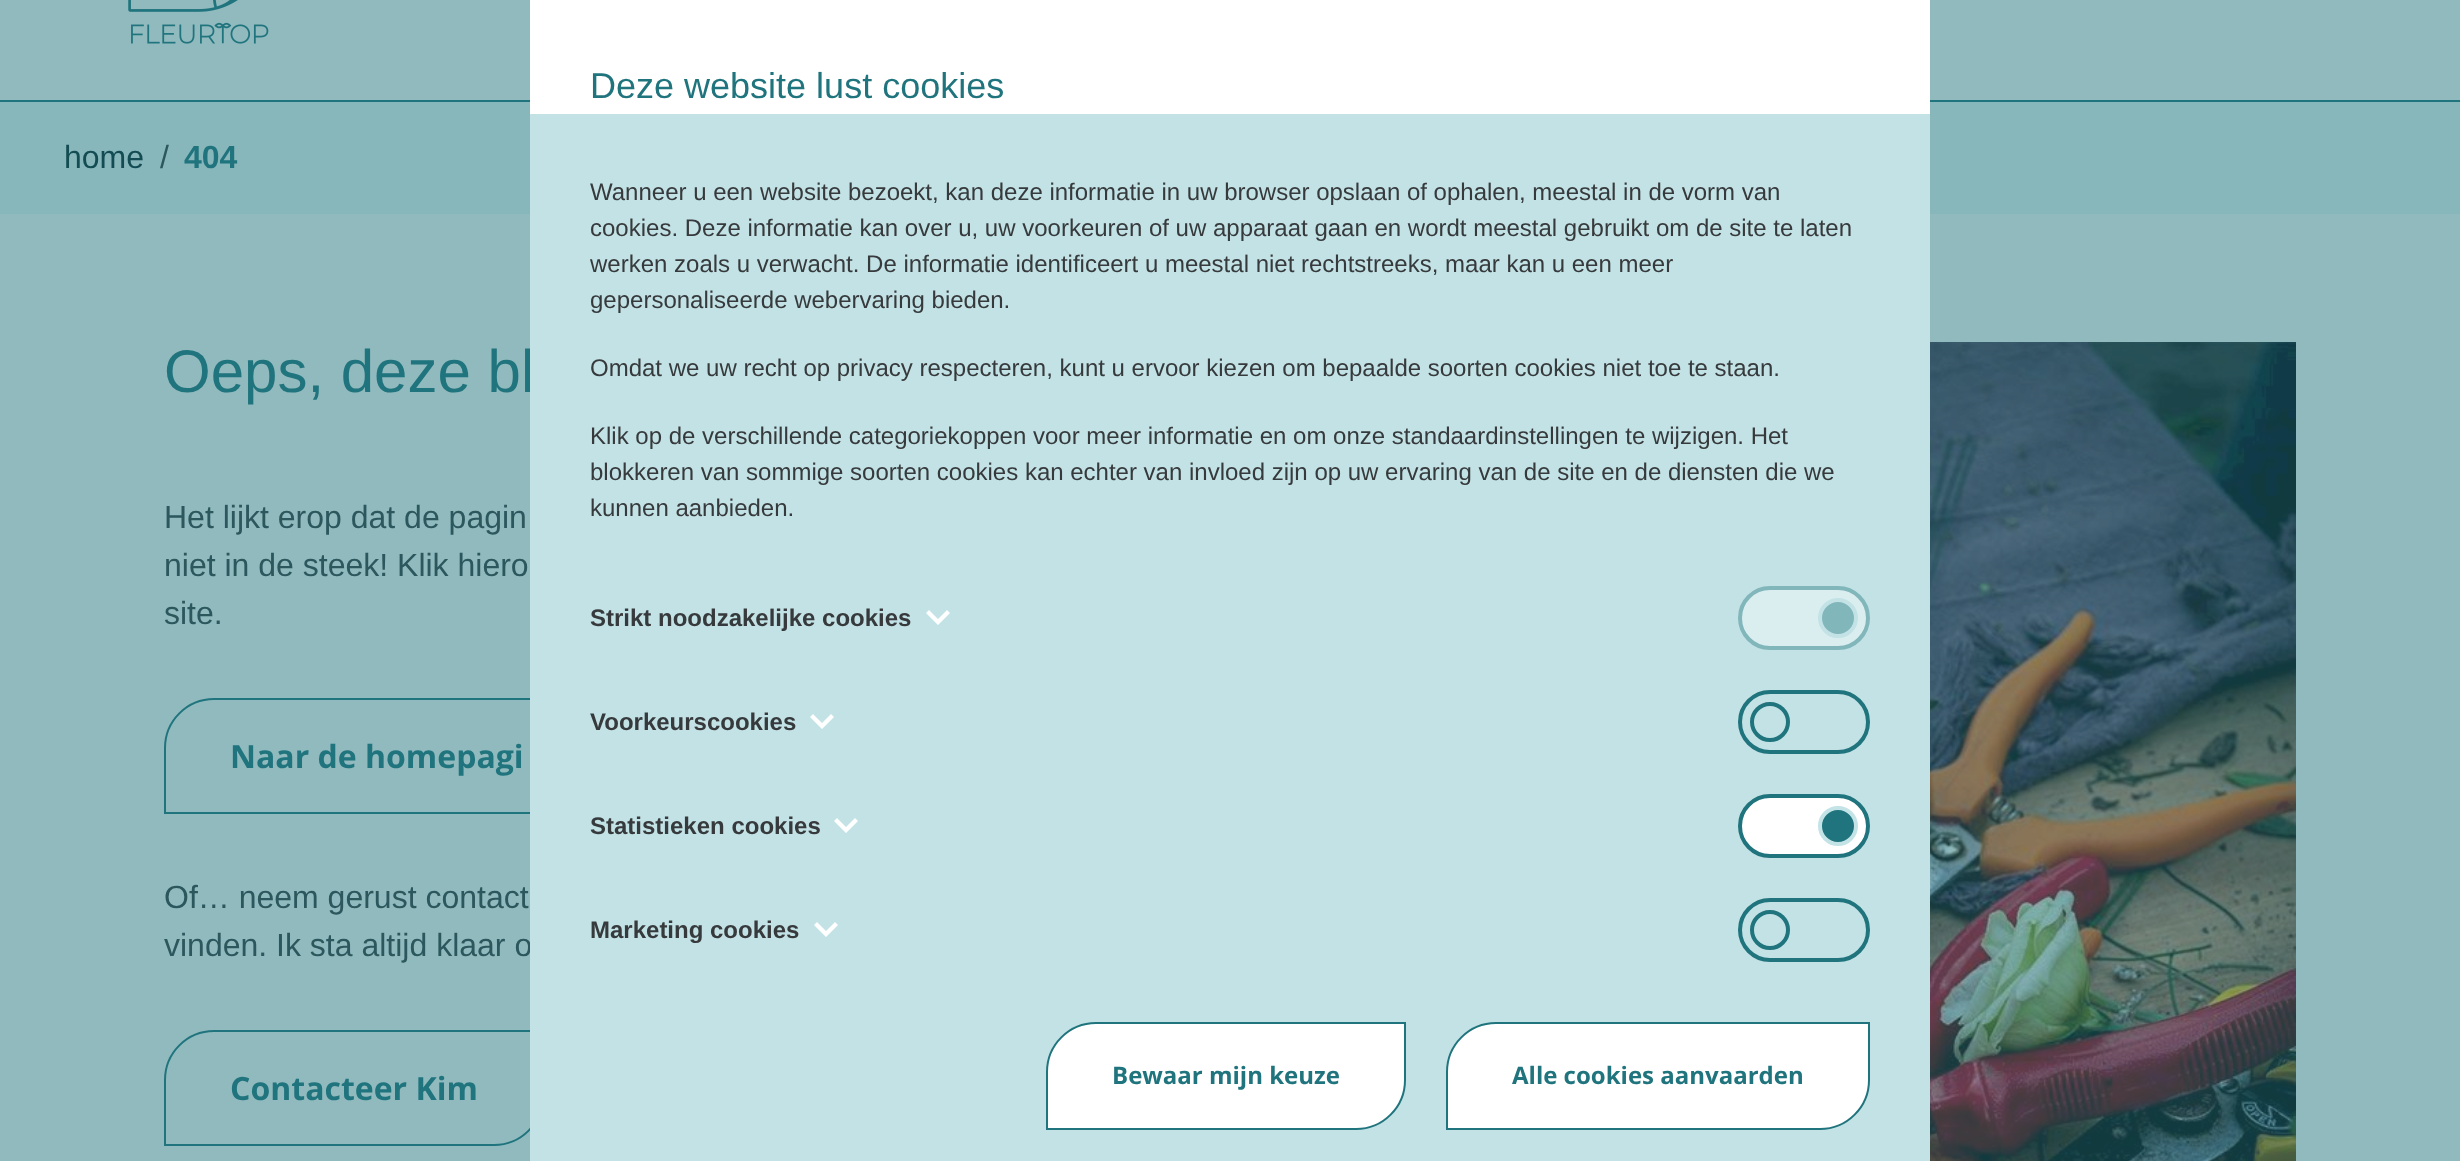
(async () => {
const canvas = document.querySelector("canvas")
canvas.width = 2460
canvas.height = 1161
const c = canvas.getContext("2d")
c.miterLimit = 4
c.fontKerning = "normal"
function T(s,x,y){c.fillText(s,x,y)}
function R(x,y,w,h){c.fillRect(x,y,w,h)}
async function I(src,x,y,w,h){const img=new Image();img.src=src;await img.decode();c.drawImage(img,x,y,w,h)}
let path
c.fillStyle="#90babe"
R(0,0,2460,1161)
c.fillStyle="#20747d"
R(0,100,2460,2)
await I("1.png",128,0,141,44)
c.fillStyle="#87b6bb"
R(0,102,2460,112)
c.font="32px Liberation Sans"
c.fillStyle="#134d53"
T("home",64,168)
c.fillStyle="#2c575d"
T("/",160,168)
c.font="bold 32px Liberation Sans"
c.fillStyle="#20747d"
T("404",184,168)
c.fillStyle="#fff"
R(530,0,1400,114)
c.font="36px Liberation Sans"
c.fillStyle="#20747d"
T("Deze website lust cookies",590,98)
c.font="60px Liberation Sans"
T("Oeps, deze bl",164,392)
c.beginPath()
c.roundRect(165,699,464,114,[49,0,49,0])
c.strokeStyle="#20747d"
c.lineWidth=2
c.stroke()
c.font="32px Liberation Sans"
c.fillStyle="#2c575d"
T("vinden. Ik sta altijd klaar o",164,956)
c.beginPath()
c.roundRect(165,1031,378,114,[49,0,49,0])
c.stroke()
c.fillStyle="#c2e2e5"
R(530,114,1400,1047)
c.font="24px Liberation Sans"
c.fillStyle="#373a3c"
T("Wanneer u een website bezoekt, kan deze informatie in uw browser opslaan of ophalen, meestal in de vorm van",590,200)
T("cookies. Deze informatie kan over u, uw voorkeuren of uw apparaat gaan en wordt meestal gebruikt om de site te laten",590,236)
T("werken zoals u verwacht. De informatie identificeert u meestal niet rechtstreeks, maar kan u een meer",590,272)
T("gepersonaliseerde webervaring bieden.",590,308)
T("Omdat we uw recht op privacy respecteren, kunt u ervoor kiezen om bepaalde soorten cookies niet toe te staan.",590,376)
T("Klik op de verschillende categoriekoppen voor meer informatie en om onze standaardinstellingen te wijzigen. Het",590,444)
T("blokkeren van sommige soorten cookies kan echter van invloed zijn op uw ervaring van de site en de diensten die we",590,480)
T("kunnen aanbieden.",590,516)
c.font="bold 24px Liberation Sans"
T("Strikt noodzakelijke cookies",590,626)
c.fillStyle="#fff"
path = new Path2D("M929 610l9 9l9-9l3 3l-12 12l-12-12z")
c.fill(path)
c.fillStyle="#daeeef"
c.beginPath()
c.roundRect(1740,588,128,60,30)
c.fill()
c.strokeStyle="#81b6bb"
c.lineWidth=4
c.stroke()
c.fillStyle="#81b6bb"
c.beginPath()
c.arc(1838,618,18,0,7)
c.fill()
c.strokeStyle="#c3e2e6"
c.stroke()
c.fillStyle="#373a3c"
T("Voorkeurscookies",590,730)
c.fillStyle="#fff"
path = new Path2D("M813 714l9 9l9-9l3 3l-12 12l-12-12z")
c.fill(path)
c.beginPath()
c.roundRect(1740,692,128,60,30)
c.strokeStyle="#20747d"
c.stroke()
c.beginPath()
c.arc(1770,722,18,0,7)
c.stroke()
c.fillStyle="#373a3c"
T("Statistieken cookies",590,834)
c.fillStyle="#fff"
path = new Path2D("M837 818l9 9l9-9l3 3l-12 12l-12-12z")
c.fill(path)
c.beginPath()
c.roundRect(1740,796,128,60,30)
c.fill()
c.stroke()
c.fillStyle="#20747d"
c.beginPath()
c.arc(1838,826,18,0,7)
c.fill()
c.strokeStyle="#c4e3e7"
c.stroke()
c.fillStyle="#373a3c"
T("Marketing cookies",590,938)
c.fillStyle="#fff"
path = new Path2D("M817 922l9 9l9-9l3 3l-12 12l-12-12z")
c.fill(path)
c.beginPath()
c.roundRect(1740,900,128,60,30)
c.strokeStyle="#20747d"
c.stroke()
c.beginPath()
c.arc(1770,930,18,0,7)
c.stroke()
c.beginPath()
c.roundRect(1047,1023,358,106,[49,0,49,0])
c.fill()
c.lineWidth=2
c.stroke()
c.font="bold 24px Open Sans"
c.fillStyle="#20747d"
T("Bewaar mijn keuze",1112,1084)
c.fillStyle="#fff"
c.beginPath()
c.roundRect(1447,1023,422,106,[49,0,49,0])
c.fill()
c.stroke()
c.fillStyle="#20747d"
T("Alle cookies aanvaarden",1512,1084)
c.font="32px Liberation Sans"
c.fillStyle="#2c575d"
T("Het lijkt erop dat de pagin",164,528)
T("niet in de steek! Klik hiero",164,576)
T("site.",164,624)
c.font="bold 32px Open Sans"
c.fillStyle="#20747d"
T("Naar de homepagi",230,768)
c.font="32px Liberation Sans"
c.fillStyle="#2c575d"
T("Of… neem gerust contact",164,908)
c.font="bold 32px Open Sans"
c.fillStyle="#20747d"
T("Contacteer Kim",230,1100)
await I("2.png",1930,342,366,819)
})()
